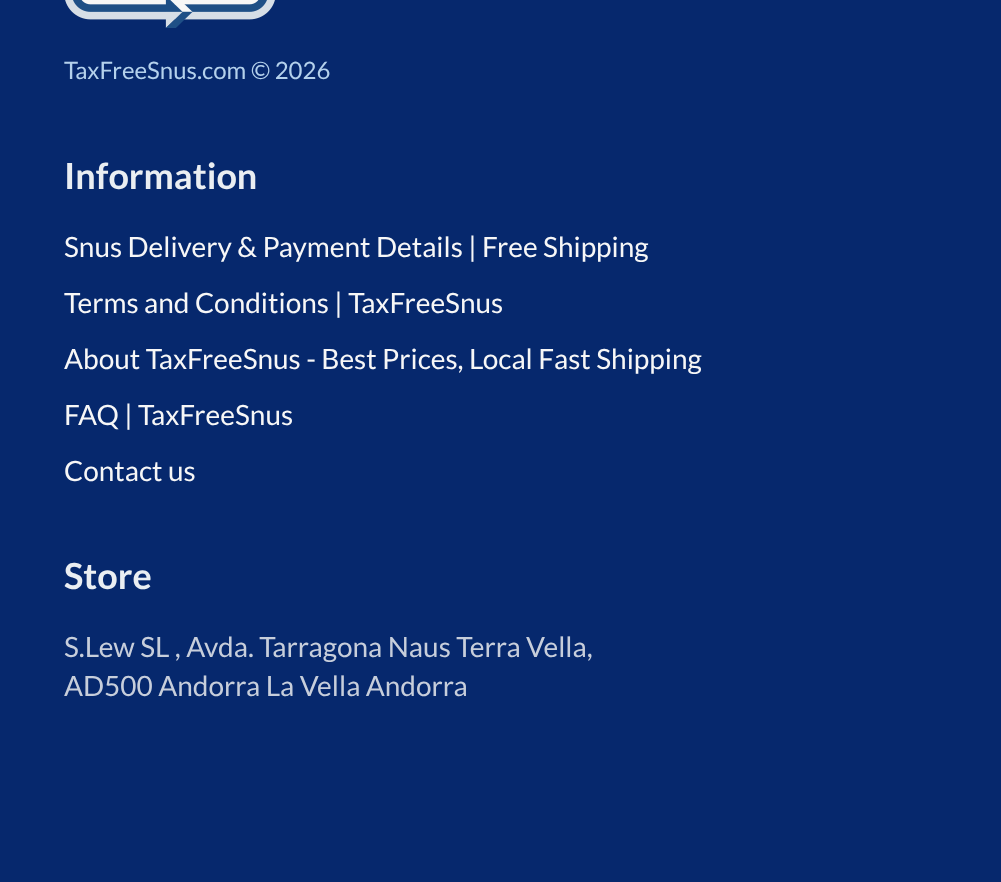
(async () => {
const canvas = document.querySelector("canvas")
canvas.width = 1001
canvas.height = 882
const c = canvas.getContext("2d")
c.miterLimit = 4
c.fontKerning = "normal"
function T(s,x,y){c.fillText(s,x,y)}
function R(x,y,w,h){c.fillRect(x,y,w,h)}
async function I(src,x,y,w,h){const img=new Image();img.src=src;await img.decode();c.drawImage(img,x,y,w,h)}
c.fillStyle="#06286d"
R(0,0,1001,882)
await I("1.png",65,0,210,28)
c.font="24px Lato"
c.fillStyle="#b4d1ec"
T("TaxFreeSnus.com © 2026",64,79)
c.font="bold 36px Lato"
c.fillStyle="#eaeef2"
T("Information",64,189)
c.font="28px Lato"
c.fillStyle="#f7f7f7"
T("Snus Delivery & Payment Details | Free Shipping",64,257)
T("Terms and Conditions | TaxFreeSnus",64,313)
T("About TaxFreeSnus - Best Prices, Local Fast Shipping",64,369)
T("FAQ | TaxFreeSnus",64,425)
T("Contact us",64,481)
c.font="bold 36px Lato"
c.fillStyle="#eaeef2"
T("Store",64,589)
c.font="28px Lato"
c.fillStyle="#c7cedb"
T("S.Lew SL , Avda. Tarragona Naus Terra Vella,",64,657)
T("AD500 Andorra La Vella Andorra",64,696)
})()
